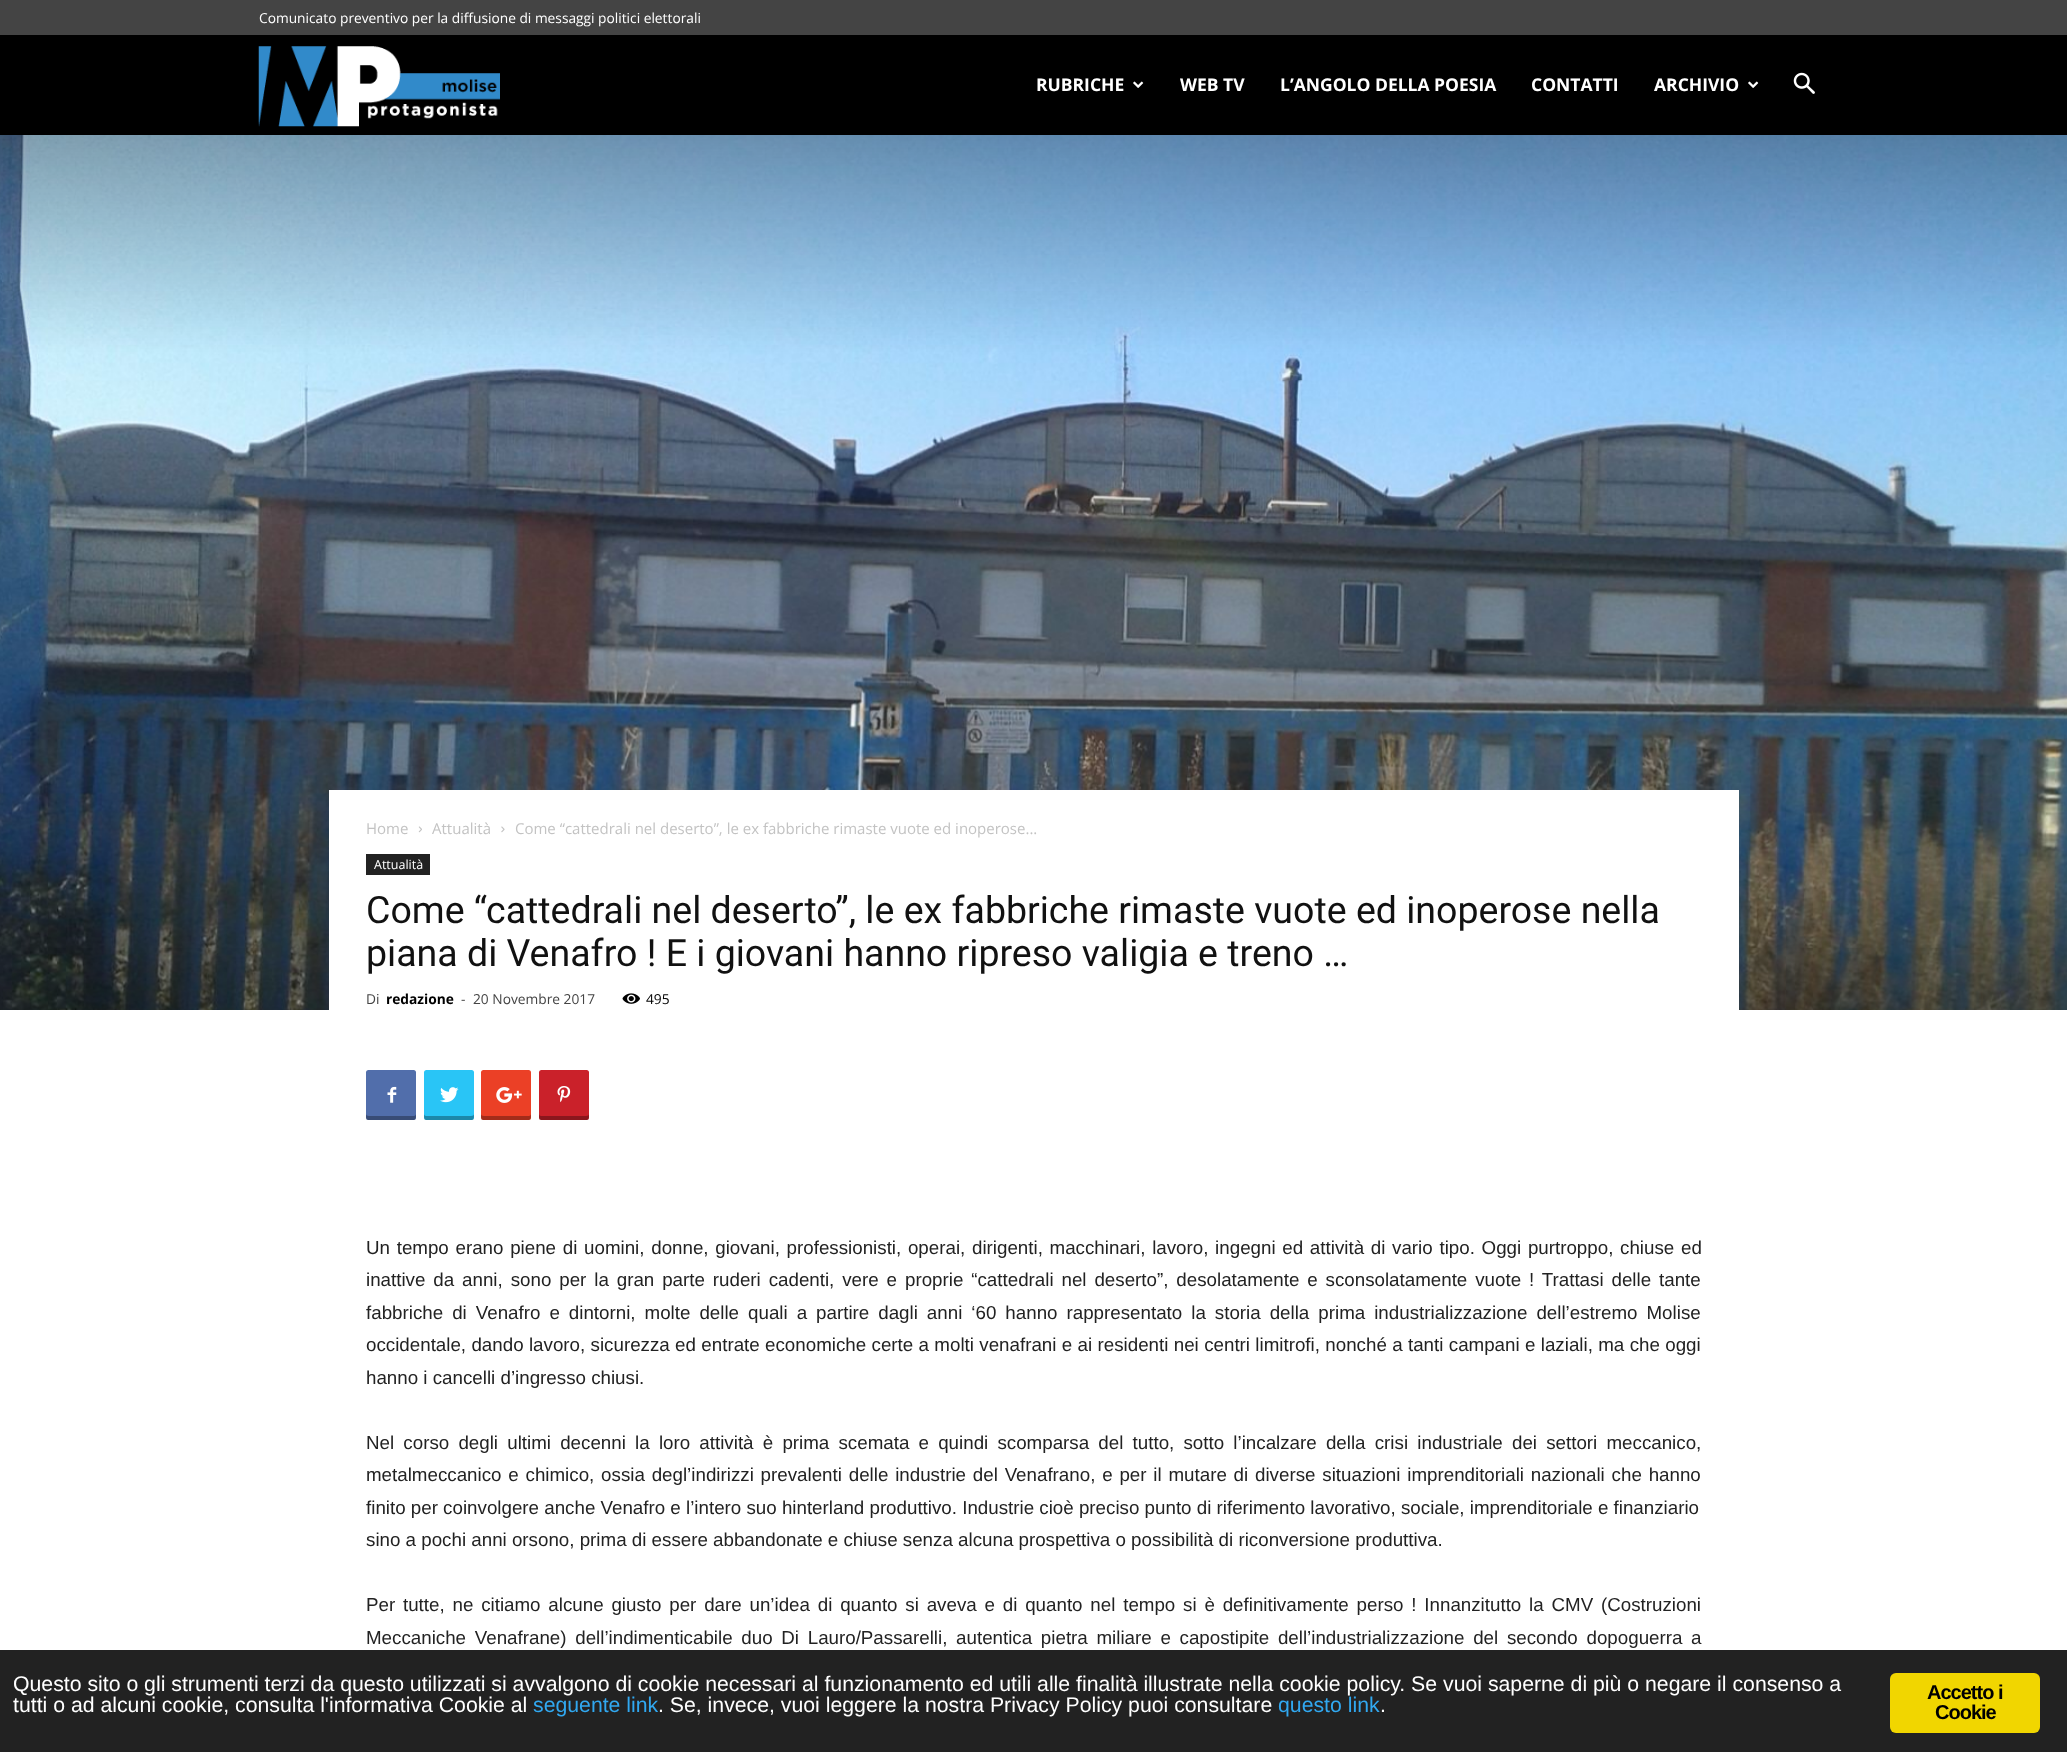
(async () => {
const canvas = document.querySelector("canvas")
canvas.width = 2067
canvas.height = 1752
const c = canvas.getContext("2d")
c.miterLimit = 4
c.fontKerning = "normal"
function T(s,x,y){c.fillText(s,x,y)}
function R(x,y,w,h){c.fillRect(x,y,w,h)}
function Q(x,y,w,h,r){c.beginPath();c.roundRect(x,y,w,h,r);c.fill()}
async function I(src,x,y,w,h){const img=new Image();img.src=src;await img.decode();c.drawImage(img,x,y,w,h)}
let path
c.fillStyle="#fff"
R(0,0,2067,1752)
c.fillStyle="#444"
R(0,0,2067,35)
c.font="13.75px Open Sans"
c.fillStyle="#fff"
T("Comunicato preventivo per la diffusione di messaggi politici elettorali",259,23)
c.fillStyle="#000"
R(0,35,2067,100)
await I("1.png",258,46,242,81)
c.font="bold 17.5px Open Sans"
c.fillStyle="#fff"
T("RUBRICHE",1036,91)
await I("2.png",1133,81,11,7)
T("WEB TV",1180,91)
T("L’ANGOLO DELLA POESIA",1280,91)
T("CONTATTI",1531,91)
T("ARCHIVIO",1654,91)
await I("2.png",1748,81,11,7)
await I("3.png",1793,72,22,22)
await I("4.png",0,135,2067,875)
R(329,790,1410,220)
c.font="15px Open Sans"
c.fillStyle="#c3c3c3"
T("Home",366,834)
await I("5.png",418,826,4,7)
T("Attualità",432,834)
await I("6.png",501,826,4,7)
T("Come “cattedrali nel deserto”, le ex fabbriche rimaste vuote ed inoperose...",515,834)
c.fillStyle="#222"
R(366,854,64,21)
c.font="12.5px Open Sans"
c.fillStyle="#fff"
T("Attualità",374,869)
c.font="37.5px Roboto"
c.fillStyle="#111"
T("Come “cattedrali nel deserto”, le ex fabbriche rimaste vuote ed inoperose nella",366,923)
T("piana di Venafro ! E i giovani hanno ripreso valigia e treno …",366,966)
c.font="13.75px Open Sans"
c.fillStyle="#444"
T("Di",366,1004)
c.font="bold 13.75px Open Sans"
c.fillStyle="#000"
T("redazione",386,1004)
c.font="13.75px Open Sans"
c.fillStyle="#444"
T("-",461,1004)
T("20 Novembre 2017",473,1004)
await I("7.png",622,993,18,11)
c.fillStyle="#000"
T("495",646,1004)
c.fillStyle="#516eab"
Q(366,1070,50,50,2.5)
c.save()
c.beginPath()
c.rect(366,1070,50,50)
c.clip()
c.fillStyle="#0000004f"
path = new Path2D("M366 1114c0 8 1 6 10 6h30c9 0 10 2 10-6c0 1-1 2-2 2h-45c-2 0-3-1-3-2z")
c.fill(path)
c.restore()
await I("8.png",387,1086,10,17)
c.fillStyle="#29c5f6"
Q(424,1070,50,50,2.5)
c.save()
c.beginPath()
c.rect(424,1070,50,50)
c.clip()
c.fillStyle="#0000004f"
path = new Path2D("M424 1114c0 8 1 6 10 6h30c9 0 10 2 10-6c0 1-1 2-3 2h-45c-1 0-2-1-2-2z")
c.fill(path)
c.restore()
await I("9.png",440,1087,19,16)
c.fillStyle="#eb4026"
Q(481,1070,50,50,2.5)
c.save()
c.beginPath()
c.rect(481,1070,50,50)
c.clip()
c.fillStyle="#0000004f"
path = new Path2D("M481 1114c0 8 1 6 10 6h30c9 0 10 2 10-6c0 1-1 2-2 2h-45c-2 0-3-1-3-2z")
c.fill(path)
c.restore()
await I("10.png",496,1087,26,16)
c.fillStyle="#ca212a"
Q(539,1070,50,50,2.5)
c.save()
c.beginPath()
c.rect(539,1070,50,50)
c.clip()
c.fillStyle="#0000004f"
path = new Path2D("M539 1114c0 8 1 6 10 6h30c9 0 10 2 10-6c0 1-1 2-3 2h-45c-1 0-2-1-2-2z")
c.fill(path)
c.restore()
await I("11.png",557,1086,14,17)
c.wordSpacing="1.5px"
c.font="18.75px Liberation Sans"
c.fillStyle="#222"
T("Un tempo erano piene di uomini, donne, giovani, professionisti, operai, dirigenti, macchinari, lavoro, ingegni ed attività di vario tipo. Oggi purtroppo, chiuse ed",366,1254)
c.wordSpacing="2.7px"
T("inattive da anni, sono per la gran parte ruderi cadenti, vere e proprie “cattedrali nel deserto”, desolatamente e sconsolatamente vuote ! Trattasi delle tante",366,1286)
c.wordSpacing="3.8px"
T("fabbriche di Venafro e dintorni, molte delle quali a partire dagli anni ‘60 hanno rappresentato la storia della prima industrializzazione dell’estremo Molise",366,1319)
c.wordSpacing="0.15px"
T("occidentale, dando lavoro, sicurezza ed entrate economiche certe a molti venafrani e ai residenti nei centri limitrofi, nonché a tanti campani e laziali, ma che oggi",366,1351)
c.wordSpacing="0px"
T("hanno i cancelli d’ingresso chiusi.",366,1384)
c.wordSpacing="4px"
T("Nel corso degli ultimi decenni la loro attività è prima scemata e quindi scomparsa del tutto, sotto l’incalzare della crisi industriale dei settori meccanico,",366,1449)
c.wordSpacing="1.6px"
T("metalmeccanico e chimico, ossia degl’indirizzi prevalenti delle industrie del Venafrano, e per il mutare di diverse situazioni imprenditoriali nazionali che hanno",366,1481)
c.wordSpacing="0px"
T("finito per coinvolgere anche Venafro e l’intero suo hinterland produttivo. Industrie cioè preciso punto di riferimento lavorativo, sociale, imprenditoriale e finanziario",366,1514)
T("sino a pochi anni orsono, prima di essere abbandonate e chiuse senza alcuna prospettiva o possibilità di riconversione produttiva.",366,1546)
c.wordSpacing="2.6px"
T("Per tutte, ne citiamo alcune giusto per dare un’idea di quanto si aveva e di quanto nel tempo si è definitivamente perso ! Innanzitutto la CMV (Costruzioni",366,1611)
c.wordSpacing="3.5px"
T("Meccaniche Venafrane) dell’indimenticabile duo Di Lauro/Passarelli, autentica pietra miliare e capostipite dell’industrializzazione del secondo dopoguerra a",366,1644)
R(0,1650,2067,102)
c.wordSpacing="0px"
c.font="21.25px Liberation Sans"
c.fillStyle="#fff"
T("Questo sito o gli strumenti terzi da questo utilizzati si avvalgono di cookie necessari al funzionamento ed utili alle finalità illustrate nella cookie policy. Se vuoi saperne di più o negare il consenso a",13,1691)
T("tutti o ad alcuni cookie, consulta l'informativa Cookie al",13,1712)
c.fillStyle="#31a8f0"
T("seguente link",533,1712)
c.fillStyle="#fff"
T(". Se, invece, vuoi leggere la nostra Privacy Policy puoi consultare",658,1712)
c.fillStyle="#31a8f0"
T("questo link",1278,1712)
c.fillStyle="#fff"
T(".",1380,1712)
c.fillStyle="#f1d600"
Q(1890,1673,150,60,6)
c.letterSpacing="-1px"
c.font="bold 20px Liberation Sans"
c.fillStyle="#000"
T("Accetto i",1927,1699)
T("Cookie",1935,1719)
})()
